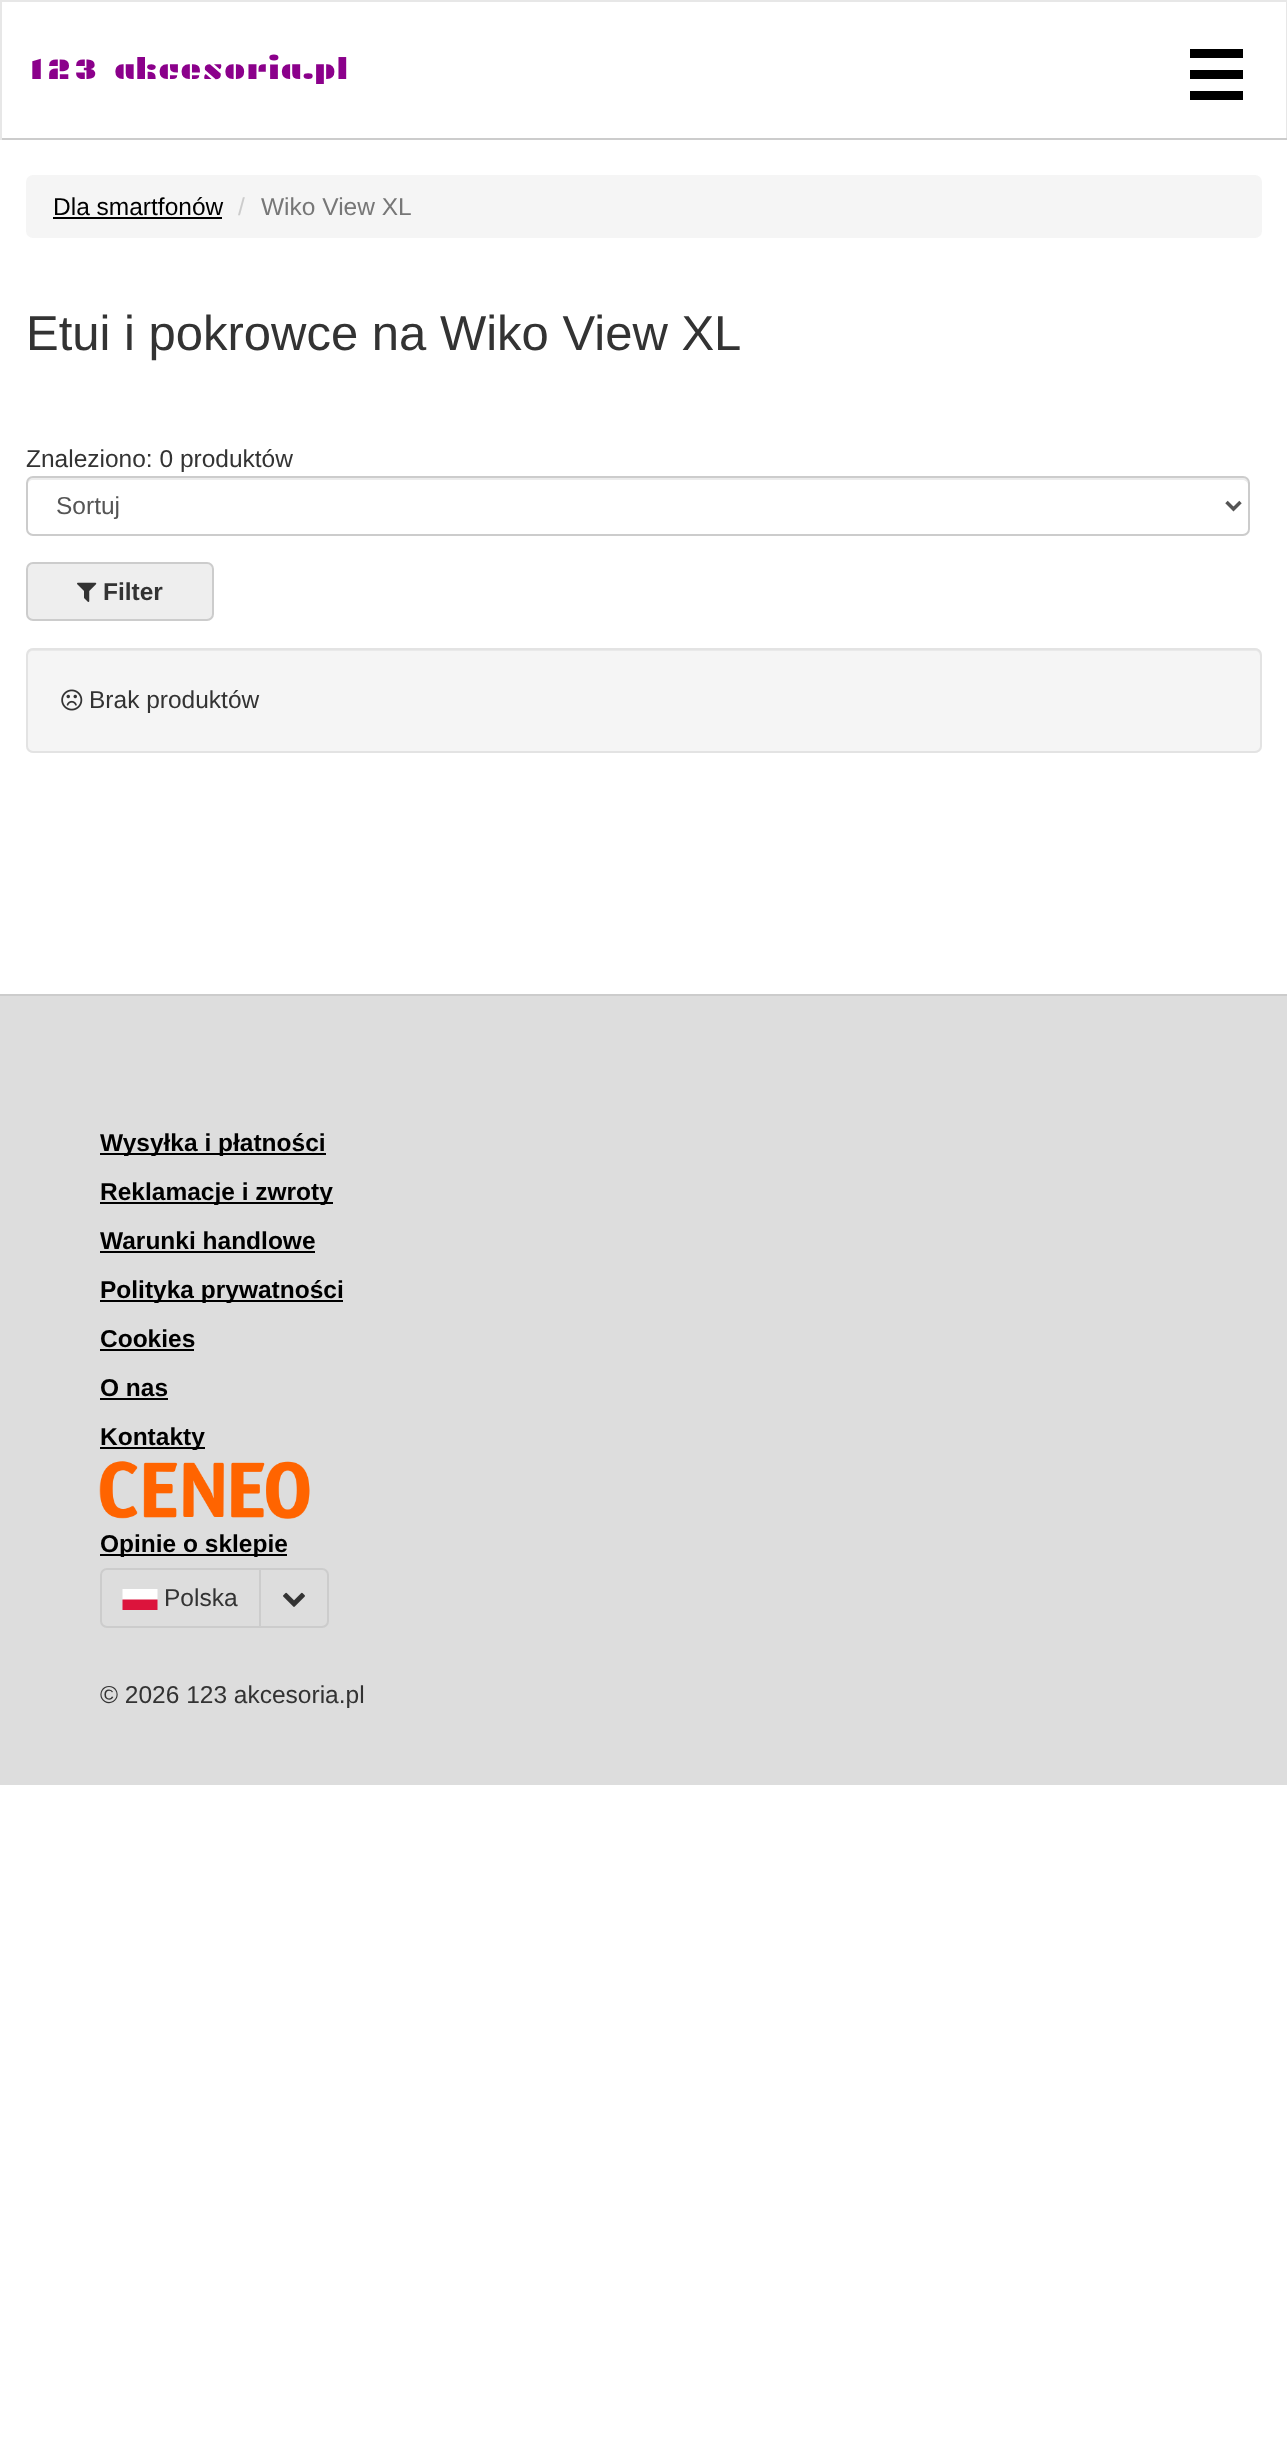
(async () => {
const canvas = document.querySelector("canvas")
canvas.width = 1287
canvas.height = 2443
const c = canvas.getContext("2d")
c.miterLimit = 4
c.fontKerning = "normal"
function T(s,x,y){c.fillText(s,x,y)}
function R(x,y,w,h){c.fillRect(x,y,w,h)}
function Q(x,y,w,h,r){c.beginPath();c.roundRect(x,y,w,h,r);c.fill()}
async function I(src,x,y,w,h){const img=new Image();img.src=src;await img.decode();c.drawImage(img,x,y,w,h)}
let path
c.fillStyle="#fff"
R(0,0,1287,2443)
c.fillStyle="#e7e7e7"
R(0,0,1287,2)
R(1286,0,1,140)
c.fillStyle="#ccc"
R(0,138,1287,2)
c.fillStyle="#e7e7e7"
R(0,0,2,140)
c.font="29.4px Plaster"
c.fillStyle="#8b008b"
T("123 akcesoria.pl",28,79)
c.fillStyle="#000"
R(1190,70,53,9)
R(1190,49,53,9)
R(1190,91,53,9)
c.fillStyle="#f5f5f5"
Q(26,175,1236,63,7)
c.font="24.5px Liberation Sans"
c.fillStyle="#000"
T("Dla smartfonów",53,215)
R(53,217,169,2)
c.fillStyle="#ccc"
T("/",238,215)
c.fillStyle="#777"
T("Wiko View XL",261,215)
c.font="49px Liberation Sans"
c.fillStyle="#333"
T("Etui i pokrowce na Wiko View XL",26,350)
c.font="24.5px Liberation Sans"
T("Znaleziono: 0 produktów",26,467)
c.fillStyle="#ececec"
path = new Path2D("M33 480h1209c3 0 6 2 6 5v-2c0-3-2-5-5-5h-1210c-3 0-5 2-5 5v2c0-3 2-5 5-5z")
c.fill(path)
c.beginPath()
c.roundRect(27,477,1222,58,6)
c.strokeStyle="#ccc"
c.lineWidth=2
c.stroke()
path = new Path2D("M1226.5 502l7 7l7-7")
c.strokeStyle="#555"
c.lineWidth=3.5
c.stroke(path)
c.fillStyle="#555"
T("Sortuj",56,514)
c.fillStyle="#eee"
c.beginPath()
c.roundRect(27,563,186,57,6)
c.fill()
c.strokeStyle="#ccc"
c.lineWidth=2
c.stroke()
await I("1.png",77,582,20,20)
c.font="bold 24.5px Liberation Sans"
c.fillStyle="#333"
T("Filter",103,600)
c.fillStyle="#f5f5f5"
Q(26,648,1236,105,7)
c.fillStyle="#e9e9e9"
path = new Path2D("M33 651h1222c3 0 5 2 5 5v-2c0-3-2-5-5-5h-1222c-3 0-5 2-5 5v2c0-3 2-5 5-5z")
c.fill(path)
c.beginPath()
c.roundRect(27,649,1234,103,6)
c.strokeStyle="#e3e3e3"
c.stroke()
await I("2.png",61,689,22,22)
c.font="24.5px Liberation Sans"
c.fillStyle="#333"
T("Brak produktów",89,708)
c.fillStyle="#ddd"
R(0,996,1287,789)
c.fillStyle="#ccc"
R(0,994,1287,2)
c.fillStyle="#000"
R(100,1153,226,2)
c.font="bold 24.5px Liberation Sans"
T("Wysyłka i płatności",100,1151)
R(100,1202,233,2)
T("Reklamacje i zwroty",100,1200)
T("Warunki handlowe",100,1249)
R(100,1251,215,2)
R(100,1300,243,2)
T("Polityka prywatności",100,1298)
T("Cookies",100,1347)
R(100,1349,94,2)
T("O nas",100,1396)
R(100,1398,68,2)
R(100,1447,105,2)
T("Kontakty",100,1445)
await I("3.png",99,1461,211,58)
R(100,1554,187,2)
T("Opinie o sklepie",100,1552)
c.beginPath()
c.roundRect(101,1569,159,58,[6,0,0,6])
c.strokeStyle="#ccc"
c.stroke()
await I("4.png",122,1589,36,21)
c.font="24.5px Liberation Sans"
c.fillStyle="#333"
T("Polska",164,1606)
c.beginPath()
c.roundRect(260,1569,68,58,[0,6,6,0])
c.stroke()
await I("5.png",283,1592,22,15)
T("© 2026 123 akcesoria.pl",100,1703)
})()
